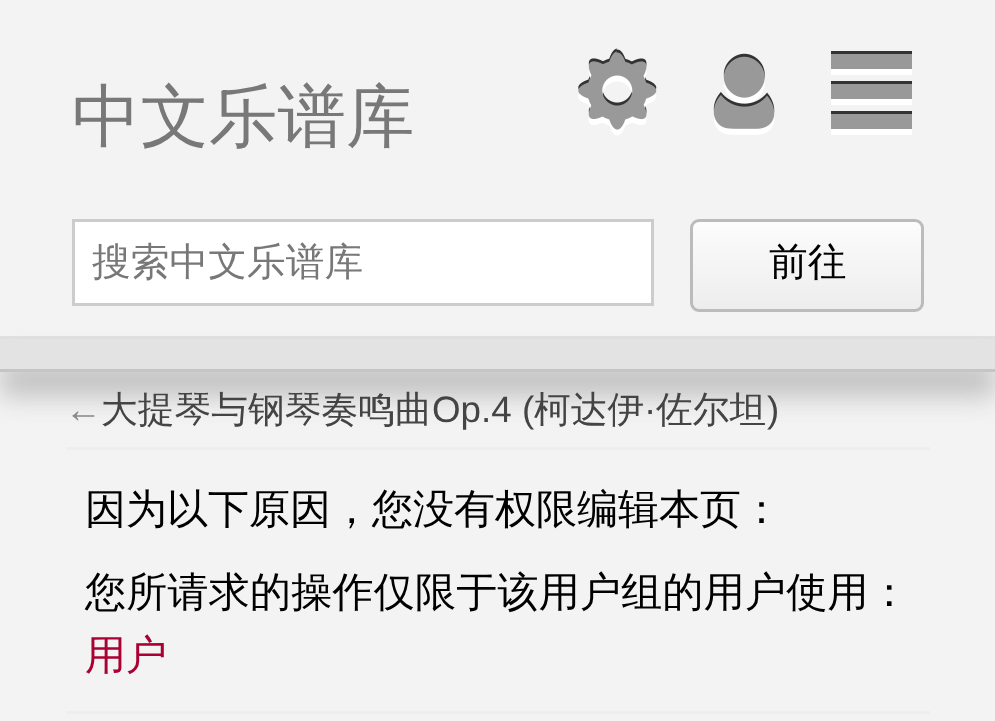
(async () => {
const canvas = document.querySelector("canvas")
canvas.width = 995
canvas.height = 721
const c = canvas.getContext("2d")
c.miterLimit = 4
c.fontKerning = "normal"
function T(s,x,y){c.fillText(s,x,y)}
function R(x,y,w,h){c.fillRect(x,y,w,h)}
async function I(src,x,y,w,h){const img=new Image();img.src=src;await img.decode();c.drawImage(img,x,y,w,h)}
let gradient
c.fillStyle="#f3f3f3"
R(0,0,995,721)
c.fillStyle="#e0e0e0"
R(0,336,995,3)
c.font="500 68.5px WenQuanYi Zen Hei"
c.fillStyle="#787878"
T("中文乐谱库",72,140)
await I("1.png",578,48,79,88)
await I("2.png",713,53,62,82)
c.fillStyle="#fff"
R(831,129,81,6)
R(831,99,81,6)
R(831,69,81,6)
c.fillStyle="#333"
R(831,111,81,3)
R(831,81,81,3)
R(831,51,81,3)
c.fillStyle="#999"
R(831,114,81,15)
R(831,84,81,15)
R(831,54,81,15)
c.fillStyle="#fff"
c.beginPath()
c.rect(73.5,220.5,579,84)
c.fill()
c.strokeStyle="#ccc"
c.lineWidth=3
c.stroke()
c.font="500 38.75px WenQuanYi Zen Hei"
c.fillStyle="#787878"
T("搜索中文乐谱库",92,275)
c.save()
c.beginPath()
c.roundRect(690,219,234,93,9)
c.clip()
gradient = c.createLinearGradient(807,222,807,309)
gradient.addColorStop(0,"#fcfcfc")
gradient.addColorStop(1,"#ededed")
c.fillStyle = gradient
R(690,222,234,87)
c.restore()
c.beginPath()
c.roundRect(691.5,220.5,231,90,7.5)
c.strokeStyle="#bbb"
c.stroke()
c.fillStyle="#000"
T("前往",769,275)
c.fillStyle="#bfbfbf"
c.filter="blur(13.5px)"
c.beginPath()
c.rect(0,363,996,33)
c.fill()
c.filter="none"
c.fillStyle="#e3e3e3"
R(0,339,995,30)
c.fillStyle="#c9c4c4"
R(0,369,995,3)
c.fillStyle="#eee"
R(66,447,864,3)
c.font="36.75px Liberation Sans"
c.fillStyle="#888"
T("←",65,422)
c.font="500 36.75px WenQuanYi Zen Hei"
c.fillStyle="#444"
T("大提琴与钢琴奏鸣曲",101,422)
c.font="36.75px Liberation Sans"
T("Op.4 (",432,422)
c.font="500 36.75px WenQuanYi Zen Hei"
T("柯达伊",534,422)
c.font="36.75px Liberation Sans"
T("·",644,422)
c.font="500 36.75px WenQuanYi Zen Hei"
T("佐尔坦",656,422)
c.font="36.75px Liberation Sans"
T(")",767,422)
c.font="500 41px WenQuanYi Zen Hei"
c.fillStyle="#000"
T("因为以下原因，您没有权限编辑本页：",85,523)
c.letterSpacing="0.25px"
T("您所请求的操作仅限于该用户组的用户使用：",85,606)
c.letterSpacing="0px"
c.fillStyle="#a03"
T("用户",85,669)
c.fillStyle="#eee"
R(66,711,864,3)
})()
